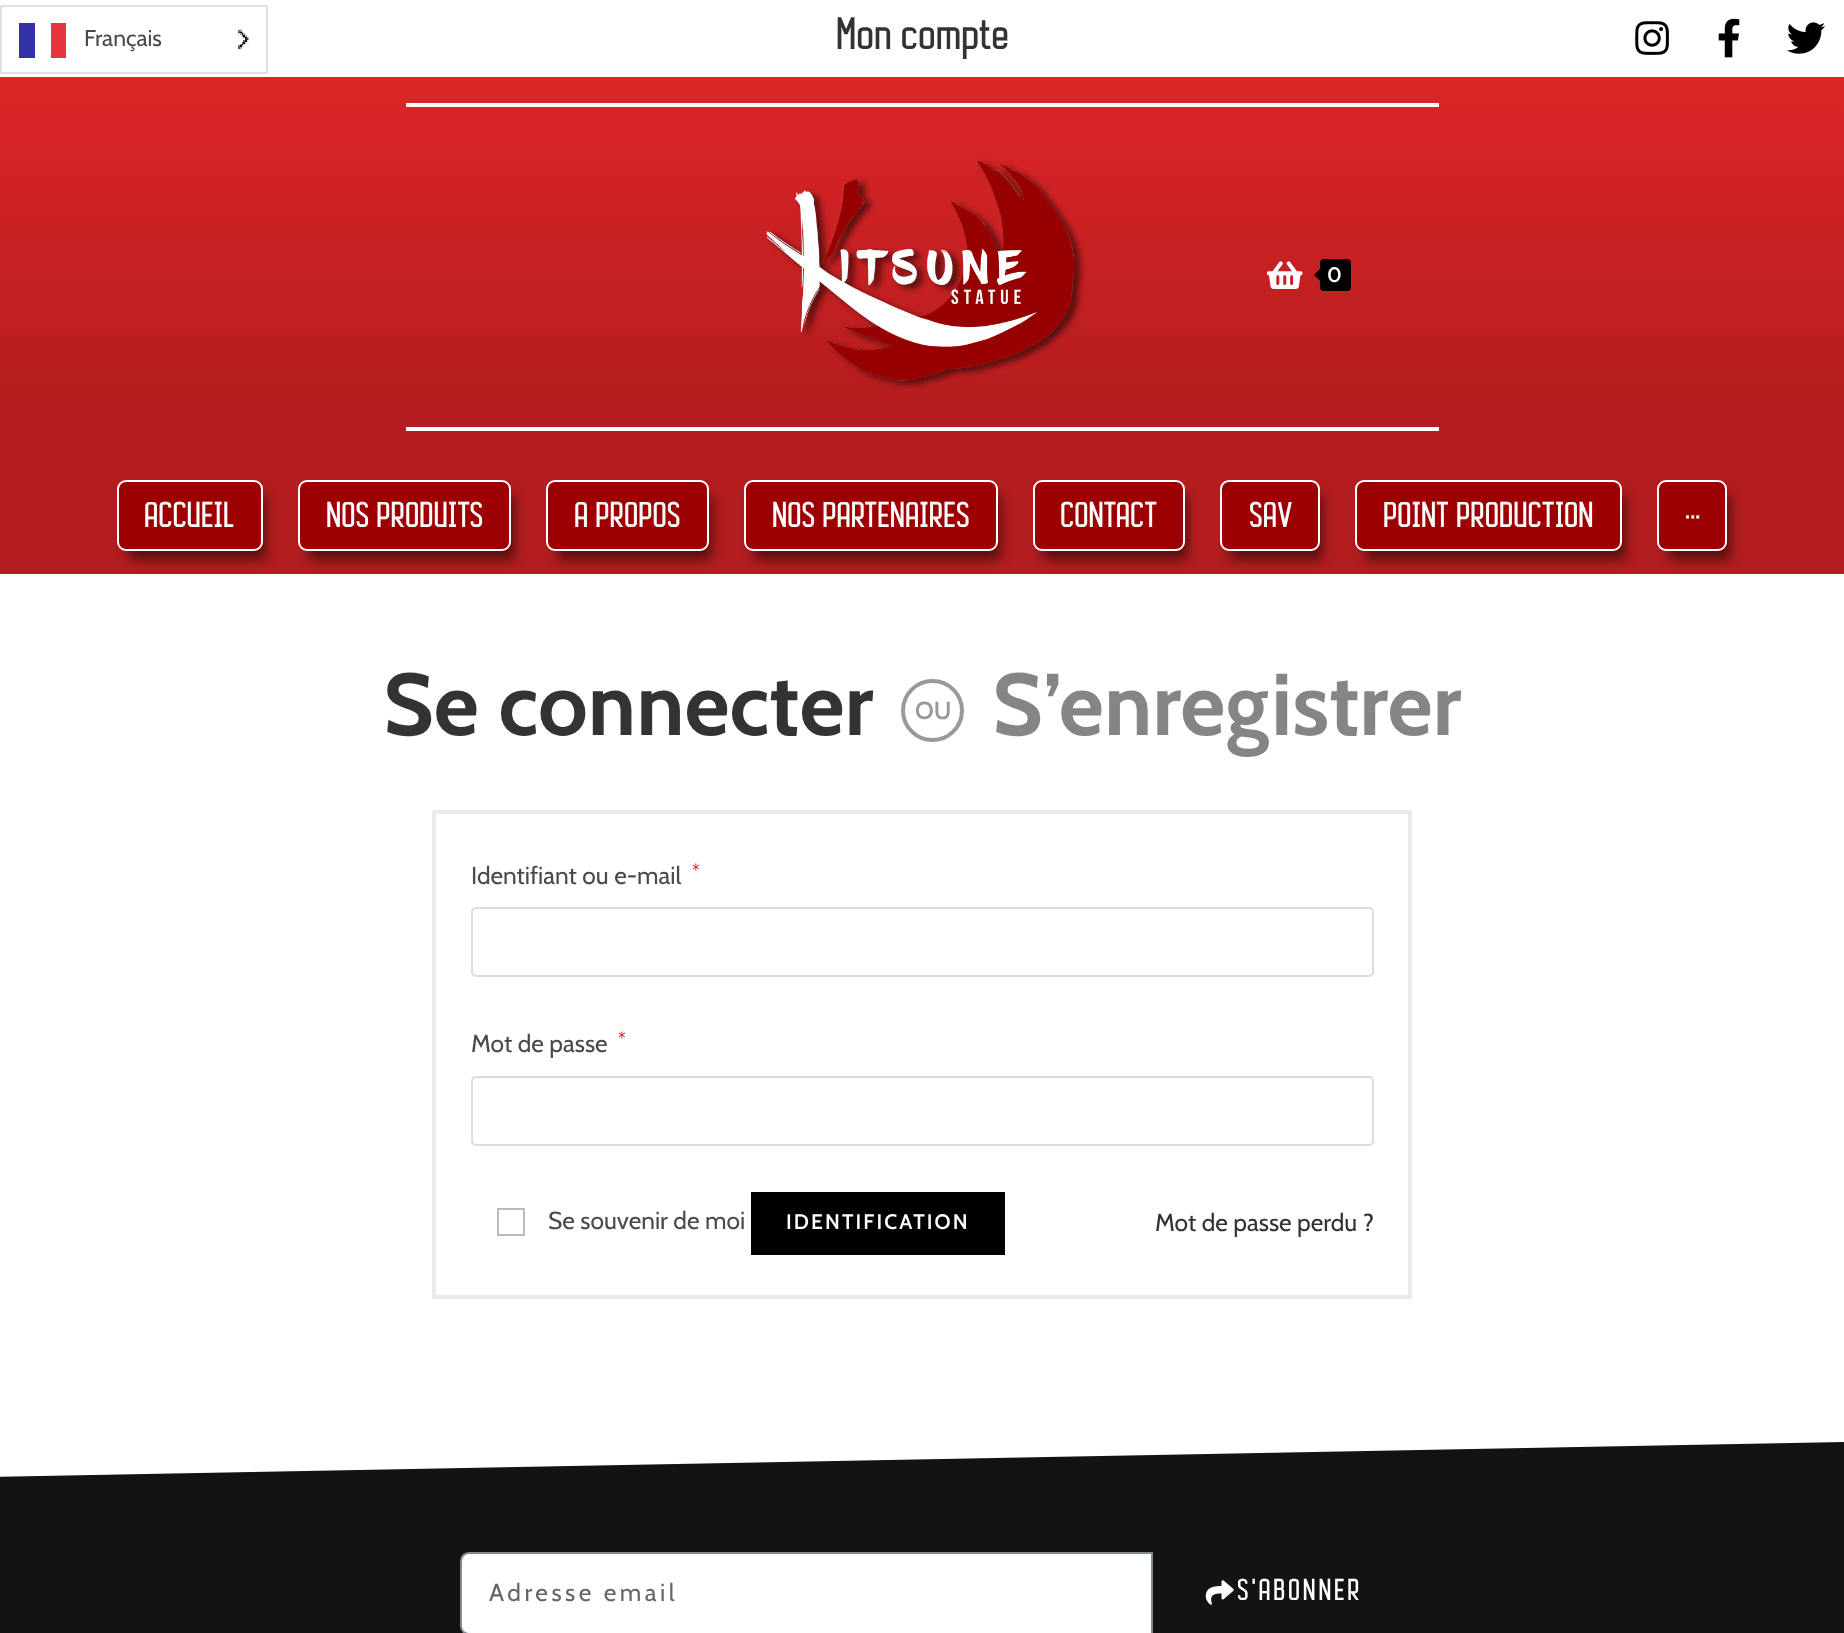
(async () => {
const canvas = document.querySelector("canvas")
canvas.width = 1844
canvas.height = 1633
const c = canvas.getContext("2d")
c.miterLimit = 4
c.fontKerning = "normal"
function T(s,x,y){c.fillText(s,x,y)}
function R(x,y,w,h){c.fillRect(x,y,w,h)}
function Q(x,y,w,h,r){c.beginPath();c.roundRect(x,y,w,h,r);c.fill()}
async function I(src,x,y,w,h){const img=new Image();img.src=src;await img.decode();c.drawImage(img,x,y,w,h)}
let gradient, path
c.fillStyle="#fff"
R(0,0,1844,1633)
c.strokeStyle="#e0e0e0"
c.lineWidth=2
c.strokeRect(1,6,266,67)
c.fillStyle="#3333a7"
R(19,23,16,35)
c.fillStyle="#e7333f"
R(51,23,15,35)
c.font="23px Cabin"
c.fillStyle="#4a4a4a"
T("Français",84,46)
await I("1.png",238,29,11,20)
c.font="bold 42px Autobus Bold"
c.fillStyle="#333"
T("Mon compte",836,49)
await I("2.png",1635,21,34,34)
await I("3.png",1718,18,22,40)
await I("4.png",1787,22,39,32)
gradient = c.createLinearGradient(922,77,922,574)
gradient.addColorStop(0,"#dd2527")
gradient.addColorStop(.67,"#b41d1f")
c.fillStyle = gradient
R(0,77,1844,497)
c.fillStyle="#fff"
R(406,103,1033,4)
await I("5.png",766,159,319,230)
await I("6.png",1267,261,36,28)
c.fillStyle="#000"
Q(1320,259,31,32,4)
path = new Path2D("M1323 266v17.5l-9-8.5z")
c.fill(path)
c.font="600 21px Cabin"
c.fillStyle="#fff"
T("0",1327,282)
R(406,427,1033,4)
c.fillStyle="#00000080"
c.filter="blur(6px)"
c.beginPath()
c.roundRect(128,495,138,65,5)
c.fill()
c.filter="none"
c.fillStyle="#9d0002"
c.beginPath()
c.roundRect(118,481,144,69,8)
c.fill()
c.strokeStyle="#fff"
c.stroke()
c.font="bold 33.25px Autobus Bold"
c.fillStyle="#fff"
T("ACCUEIL",144,527)
c.fillStyle="#00000080"
c.filter="blur(6px)"
c.beginPath()
c.roundRect(308,495,207,65,5)
c.fill()
c.filter="none"
c.fillStyle="#9d0002"
c.beginPath()
c.roundRect(299,481,211,69,8)
c.fill()
c.stroke()
c.fillStyle="#fff"
T("NOS PRODUITS",326,527)
c.fillStyle="#00000080"
c.filter="blur(6px)"
c.beginPath()
c.roundRect(557,495,155,65,5)
c.fill()
c.filter="none"
c.fillStyle="#9d0002"
c.beginPath()
c.roundRect(547,481,161,69,8)
c.fill()
c.stroke()
c.fillStyle="#fff"
T("A PROPOS",574,527)
c.fillStyle="#00000080"
c.filter="blur(6px)"
c.beginPath()
c.roundRect(754,495,247,65,5)
c.fill()
c.filter="none"
c.fillStyle="#9d0002"
c.beginPath()
c.roundRect(745,481,252,69,8)
c.fill()
c.stroke()
c.fillStyle="#fff"
T("NOS PARTENAIRES",772,527)
c.fillStyle="#00000080"
c.filter="blur(6px)"
c.beginPath()
c.roundRect(1043,495,145,65,5)
c.fill()
c.filter="none"
c.fillStyle="#9d0002"
c.beginPath()
c.roundRect(1034,481,150,69,8)
c.fill()
c.stroke()
c.fillStyle="#fff"
T("CONTACT",1060,527)
c.fillStyle="#00000080"
c.filter="blur(6px)"
c.beginPath()
c.roundRect(1230,495,93,65,5)
c.fill()
c.filter="none"
c.fillStyle="#9d0002"
c.beginPath()
c.roundRect(1221,481,98,69,8)
c.fill()
c.stroke()
c.fillStyle="#fff"
T("SAV",1249,527)
c.fillStyle="#00000080"
c.filter="blur(6px)"
c.beginPath()
c.roundRect(1365,495,261,65,5)
c.fill()
c.filter="none"
c.fillStyle="#9d0002"
c.beginPath()
c.roundRect(1356,481,265,69,8)
c.fill()
c.stroke()
c.fillStyle="#fff"
T("POINT PRODUCTION",1383,527)
c.fillStyle="#00000080"
c.filter="blur(6px)"
c.beginPath()
c.roundRect(1668,495,63,65,5)
c.fill()
c.filter="none"
c.fillStyle="#9d0002"
c.beginPath()
c.roundRect(1658,481,68,69,8)
c.fill()
c.stroke()
c.fillStyle="#fff"
T("···",1685,527)
c.font="bold 87.5px Cabin"
c.fillStyle="#333"
T("Se connecter",383,735)
c.beginPath()
c.arc(932.5,710.5,29.5,0,7)
c.strokeStyle="#999"
c.lineWidth=4
c.stroke()
c.font="600 24.5px Cabin"
c.fillStyle="#999"
T("OU",915,719)
c.font="bold 87.5px Cabin"
c.fillStyle="#858585"
T("S’enregistrer",992,735)
c.strokeStyle="#eaeaea"
c.strokeRect(434,812,976,485)
c.font="24.5px Cabin"
c.fillStyle="#4a4a4a"
T("Identifiant ou e-mail",471,884)
c.font="18px Cabin"
c.fillStyle="#e42234"
T("*",692,877)
c.beginPath()
c.roundRect(472,908,901,68,4)
c.strokeStyle="#ddd"
c.lineWidth=2
c.stroke()
c.font="24.5px Cabin"
c.fillStyle="#4a4a4a"
T("Mot de passe",471,1052)
c.font="18px Cabin"
c.fillStyle="#e42234"
T("*",618,1045)
c.beginPath()
c.roundRect(472,1077,901,68,4)
c.stroke()
c.strokeStyle="#bbb"
c.strokeRect(498,1209,26,26)
c.font="24.5px Cabin"
c.fillStyle="#4a4a4a"
T("Se souvenir de moi",548,1229)
c.fillStyle="#000"
R(751,1192,254,63)
c.letterSpacing="2.1px"
c.font="600 21px Cabin"
c.fillStyle="#fff"
T("IDENTIFICATION",786,1229)
c.letterSpacing="0px"
c.font="24.5px Cabin"
c.fillStyle="#333"
T("Mot de passe perdu ?",1155,1231)
c.fillStyle="#131313"
R(0,1441,1844,192)
c.save()
c.beginPath()
c.rect(0,1437,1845,66)
c.clip()
c.fillStyle="#fff"
path = new Path2D("M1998 1439l-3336 63v-67h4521v67z")
c.fill(path)
c.restore()
c.fillStyle="#fff"
path = new Path2D("M469 1553h683v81h-683c-4.5 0-8-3.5-8-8v-65c0-4.5 3.5-8 8-8z")
c.fill(path)
c.strokeStyle="#818a91"
c.stroke(path)
c.letterSpacing="3.5px"
c.fillStyle="#666"
T("Adresse email",489,1601)
await I("7.png",1205,1580,29,25)
c.letterSpacing="2.75px"
c.font="bold 28px Autobus Bold"
c.fillStyle="#fff"
T("S'ABONNER",1237,1600)
})()
